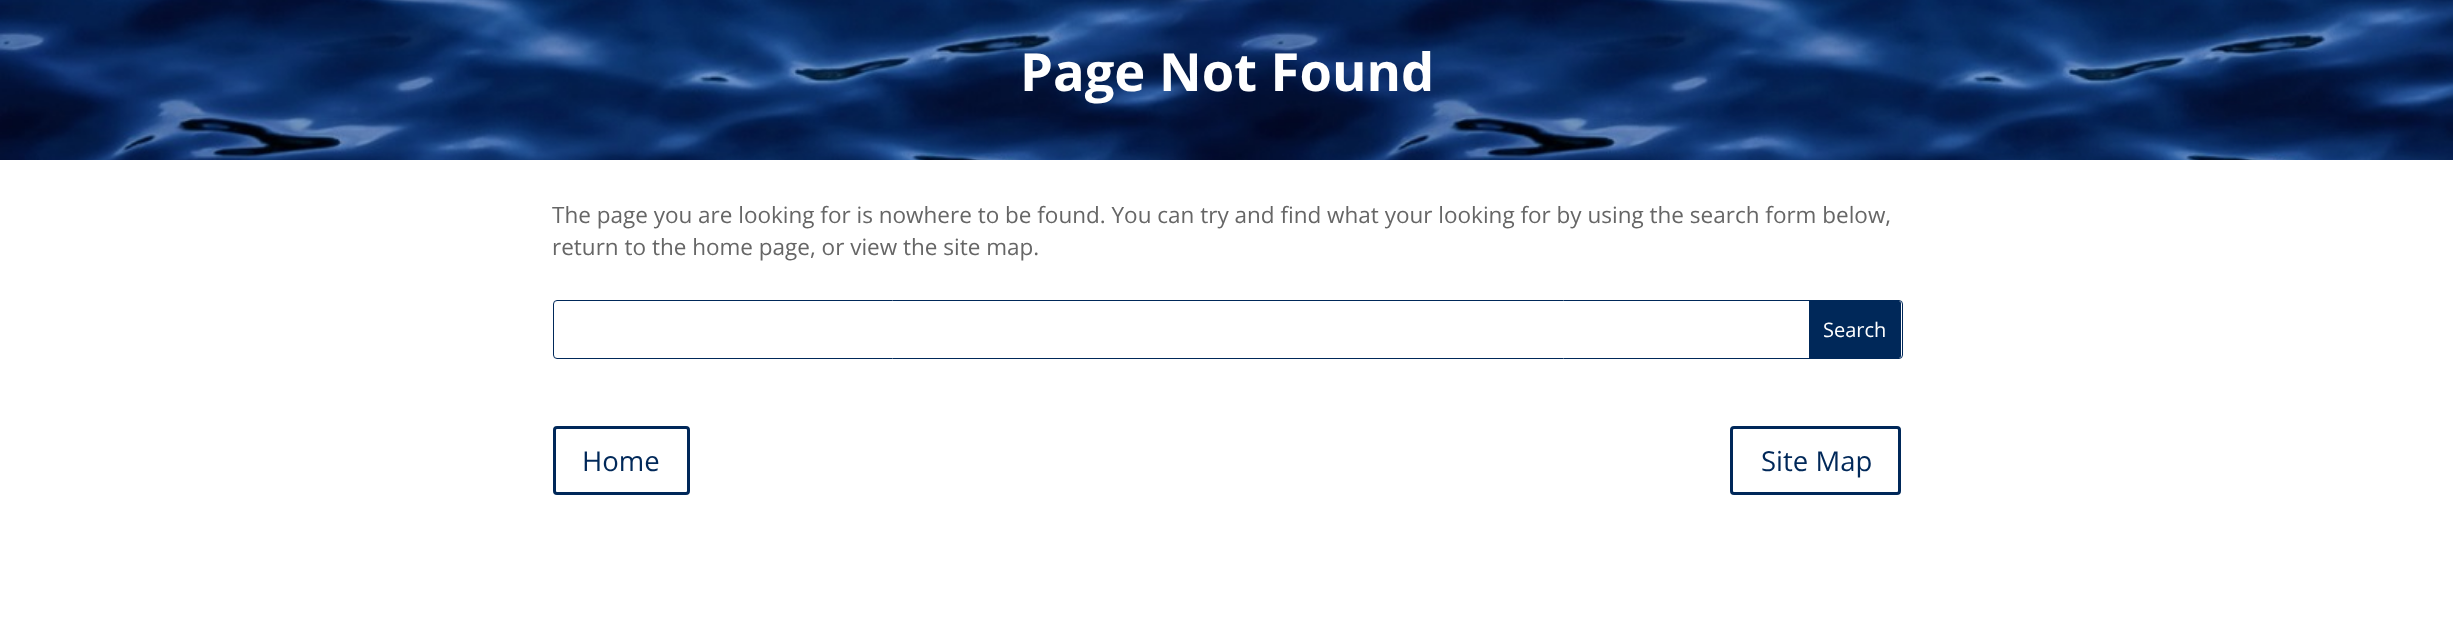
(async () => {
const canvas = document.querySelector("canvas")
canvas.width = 2453
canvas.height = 640
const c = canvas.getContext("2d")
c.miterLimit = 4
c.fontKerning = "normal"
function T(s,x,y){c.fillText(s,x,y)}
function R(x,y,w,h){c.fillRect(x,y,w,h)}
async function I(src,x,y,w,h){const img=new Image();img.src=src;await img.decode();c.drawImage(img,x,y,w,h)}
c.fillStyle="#fff"
R(0,0,2453,640)
await I("1.png",0,0,2453,160)
c.font="bold 52.5px Open Sans"
T("Page Not Found",1020,91)
c.font="22.5px Open Sans"
c.fillStyle="#666"
T("The page you are looking for is nowhere to be found. You can try and find what your looking for by using the search form below,",552,223)
T("return to the home page, or view the site map.",552,255)
c.beginPath()
c.roundRect(553.5,300.5,1349,58,3.5)
c.strokeStyle="#002859"
c.stroke()
c.fillStyle="#002859"
c.beginPath()
c.roundRect(1809,301,92,57,[0,2.5,2.5,0])
c.fill()
c.font="20px Open Sans"
c.fillStyle="#fff"
T("Search",1823,337)
c.beginPath()
c.roundRect(554.5,427.5,134,66,2.5)
c.lineWidth=3
c.stroke()
c.font="27.5px Open Sans"
c.fillStyle="#002859"
T("Home",582,471)
c.beginPath()
c.roundRect(1731.5,427.5,168,66,2.5)
c.stroke()
T("Site Map",1761,471)
})()
